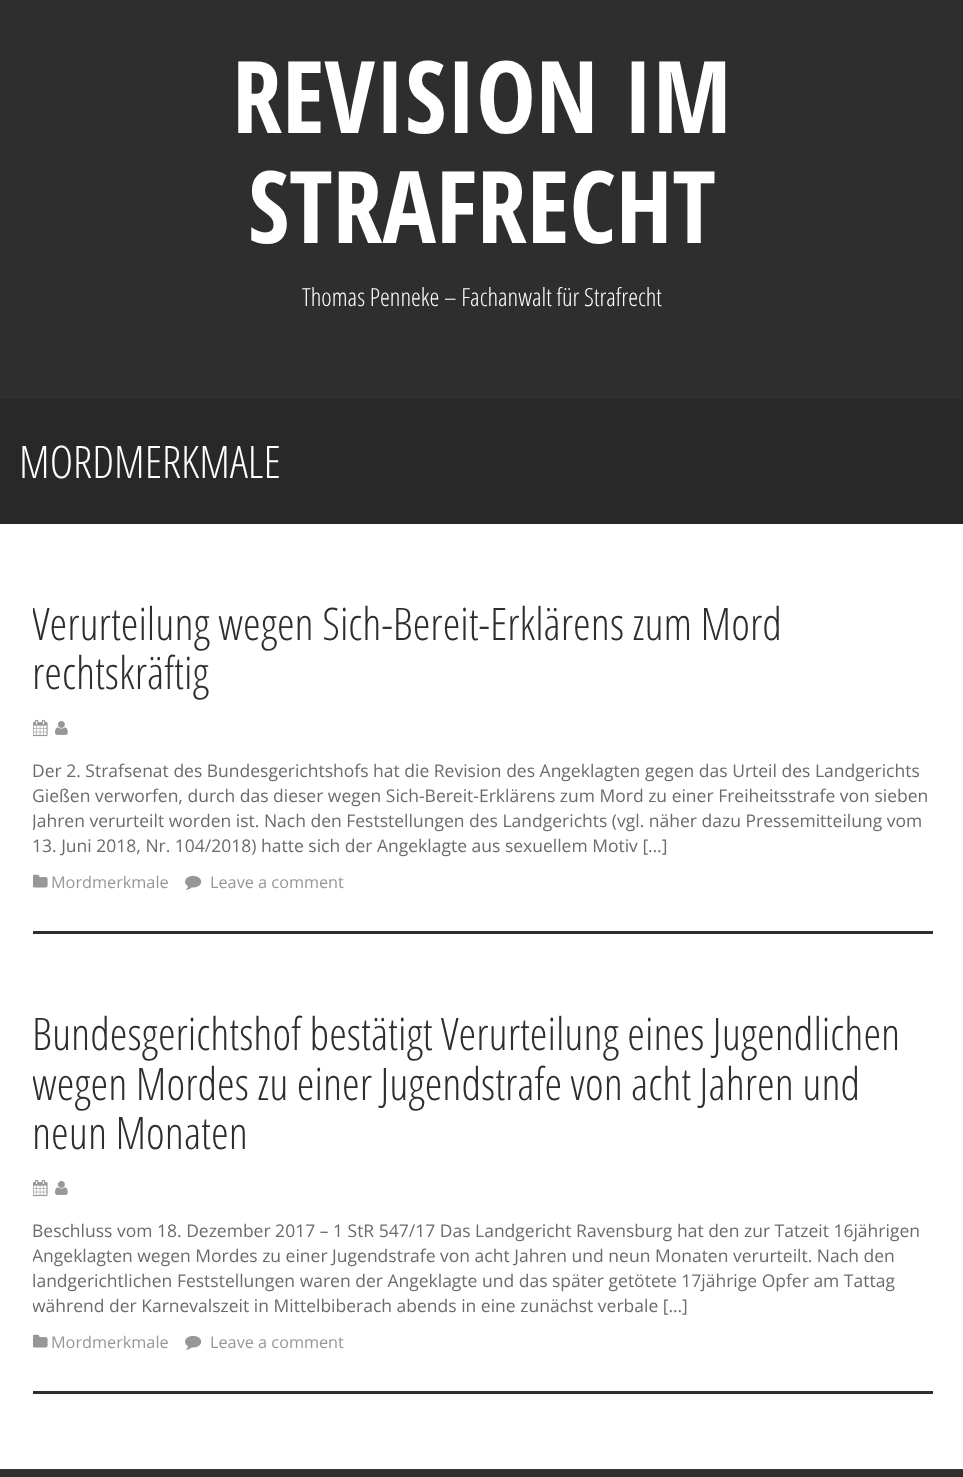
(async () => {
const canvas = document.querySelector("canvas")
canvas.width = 963
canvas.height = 1477
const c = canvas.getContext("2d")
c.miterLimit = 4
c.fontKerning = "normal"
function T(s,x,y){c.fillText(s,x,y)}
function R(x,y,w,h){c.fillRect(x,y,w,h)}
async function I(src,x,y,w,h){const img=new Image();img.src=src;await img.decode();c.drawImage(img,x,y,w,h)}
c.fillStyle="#fff"
R(0,0,963,1477)
c.fillStyle="#2e2e2e"
R(0,0,963,399)
c.font="bold 100px Open Sans Condensed"
c.fillStyle="#fff"
T("REVISION IM",232,133)
T("STRAFRECHT",248,243)
c.font="300 25px Open Sans Condensed"
T("Thomas Penneke – Fachanwalt für Strafrecht",302,306)
c.fillStyle="#282828"
R(0,399,963,125)
c.font="300 45px Open Sans Condensed"
c.fillStyle="#fff"
T("MORDMERKMALE",19,478)
c.fillStyle="#2e2e2e"
R(33,931,900,3)
c.save()
c.beginPath()
c.rect(33,599,900,332)
c.clip()
T("Verurteilung wegen Sich-Bereit-Erklärens zum Mord",32,640)
c.restore()
T("rechtskräftig",32,689)
await I("1.png",33,719,15,18)
await I("2.png",55,721,13,14)
c.font="17.5px Open Sans"
c.fillStyle="#6b6b6b"
T("Der 2. Strafsenat des Bundesgerichtshofs hat die Revision des Angeklagten gegen das Urteil des Landgerichts",32,777)
T("Gießen verworfen, durch das dieser wegen Sich-Bereit-Erklärens zum Mord zu einer Freiheitsstrafe von sieben",32,802)
c.save()
c.beginPath()
c.rect(33,599,900,332)
c.clip()
T("Jahren verurteilt worden ist. Nach den Feststellungen des Landgerichts (vgl. näher dazu Pressemitteilung vom",32,827)
c.restore()
T("13. Juni 2018, Nr. 104/2018) hatte sich der Angeklagte aus sexuellem Motiv […]",32,852)
await I("3.png",33,874,15,14)
c.font="16.25px Open Sans"
c.fillStyle="#979797"
T("Mordmerkmale",51,888)
await I("4.png",185,875,17,15)
T("Leave a comment",210,888)
c.fillStyle="#2e2e2e"
R(33,1391,900,3)
c.font="300 45px Open Sans Condensed"
T("Bundesgerichtshof bestätigt Verurteilung eines Jugendlichen",32,1050)
c.save()
c.beginPath()
c.rect(33,1009,900,382)
c.clip()
T("wegen Mordes zu einer Jugendstrafe von",32,1100)
c.restore()
T("acht Jahren und",631,1100)
T("neun Monaten",32,1149)
await I("1.png",33,1179,15,18)
await I("2.png",55,1181,13,14)
c.font="17.5px Open Sans"
c.fillStyle="#6b6b6b"
T("Beschluss vom 18. Dezember 2017 – 1 StR 547/17 Das Landgericht Ravensburg hat den zur Tatzeit 16jährigen",32,1237)
c.save()
c.beginPath()
c.rect(33,1009,900,382)
c.clip()
T("Angeklagten wegen Mordes zu einer Jugendstrafe von acht Jahren und neun Monaten verurteilt. Nach den",32,1262)
c.restore()
T("landgerichtlichen Feststellungen waren der Angeklagte und das später getötete 17jährige Opfer am Tattag",32,1287)
c.save()
c.beginPath()
c.rect(33,1009,900,382)
c.clip()
T("während der Karnevalszeit in Mittelbiberach abends in eine zunächst verbale […]",32,1312)
c.restore()
await I("3.png",33,1334,15,14)
c.font="16.25px Open Sans"
c.fillStyle="#979797"
T("Mordmerkmale",51,1348)
await I("4.png",185,1335,17,15)
T("Leave a comment",210,1348)
c.fillStyle="#2e2e2e"
R(0,1470,963,7)
c.fillStyle="#383838"
R(0,1469,963,1)
})()
